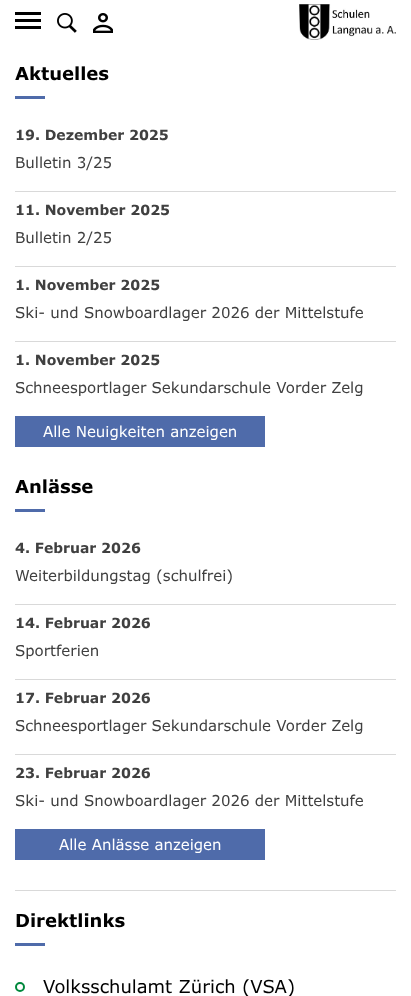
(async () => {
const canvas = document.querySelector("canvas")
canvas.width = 411
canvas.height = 996
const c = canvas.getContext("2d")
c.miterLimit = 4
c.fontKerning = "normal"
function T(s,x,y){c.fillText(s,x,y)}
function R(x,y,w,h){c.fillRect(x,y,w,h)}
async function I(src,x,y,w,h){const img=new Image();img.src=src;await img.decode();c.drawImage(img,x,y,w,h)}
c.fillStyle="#fff"
R(0,0,411,996)
c.fillStyle="#000"
R(15,12,26,3)
R(15,19,26,3)
R(15,26,26,3)
await I("1.png",57,13,20,20)
await I("2.png",93,13,20,20)
await I("3.png",299,4,97,36)
c.font="bold 18px Verdana"
T("Aktuelles",15,80)
c.fillStyle="#4f6baa"
R(15,96,30,3)
c.font="bold 14px Verdana"
c.fillStyle="#404040"
T("19. Dezember 2025",15,140)
c.font="15px Verdana"
T("Bulletin 3/25",15,168)
c.fillStyle="#d9d9d9"
R(15,191,381,1)
c.font="bold 14px Verdana"
c.fillStyle="#404040"
T("11. November 2025",15,215)
c.font="15px Verdana"
T("Bulletin 2/25",15,243)
c.fillStyle="#d9d9d9"
R(15,266,381,1)
c.font="bold 14px Verdana"
c.fillStyle="#404040"
T("1. November 2025",15,290)
c.font="15px Verdana"
T("Ski- und Snowboardlager 2026 der Mittelstufe",15,318)
c.fillStyle="#d9d9d9"
R(15,341,381,1)
c.font="bold 14px Verdana"
c.fillStyle="#404040"
T("1. November 2025",15,365)
c.font="15px Verdana"
T("Schneesportlager Sekundarschule Vorder Zelg",15,393)
c.fillStyle="#4f6baa"
R(15,416,250,31)
c.fillStyle="#fff"
T("Alle Neuigkeiten anzeigen",43,437)
c.font="bold 18px Verdana"
c.fillStyle="#000"
T("Anlässe",15,493)
c.fillStyle="#4f6baa"
R(15,509,30,3)
c.font="bold 14px Verdana"
c.fillStyle="#404040"
T("4. Februar 2026",15,553)
c.font="15px Verdana"
T("Weiterbildungstag (schulfrei)",15,581)
c.fillStyle="#d9d9d9"
R(15,604,381,1)
c.font="bold 14px Verdana"
c.fillStyle="#404040"
T("14. Februar 2026",15,628)
c.font="15px Verdana"
T("Sportferien",15,656)
c.fillStyle="#d9d9d9"
R(15,679,381,1)
c.font="bold 14px Verdana"
c.fillStyle="#404040"
T("17. Februar 2026",15,703)
c.font="15px Verdana"
T("Schneesportlager Sekundarschule Vorder Zelg",15,731)
c.fillStyle="#d9d9d9"
R(15,754,381,1)
c.font="bold 14px Verdana"
c.fillStyle="#404040"
T("23. Februar 2026",15,778)
c.font="15px Verdana"
T("Ski- und Snowboardlager 2026 der Mittelstufe",15,806)
c.fillStyle="#4f6baa"
R(15,829,250,31)
c.fillStyle="#fff"
T("Alle Anlässe anzeigen",59,850)
c.fillStyle="#d9d9d9"
R(15,890,381,1)
c.font="bold 18px Verdana"
c.fillStyle="#000"
T("Direktlinks",15,927)
c.fillStyle="#4f6baa"
R(15,943,30,3)
c.beginPath()
c.arc(20,987,4,0,7)
c.strokeStyle="#00883c"
c.lineWidth=2
c.stroke()
c.font="18px Verdana"
c.fillStyle="#000"
T("Volksschulamt Zürich (VSA)",43,993)
})()
